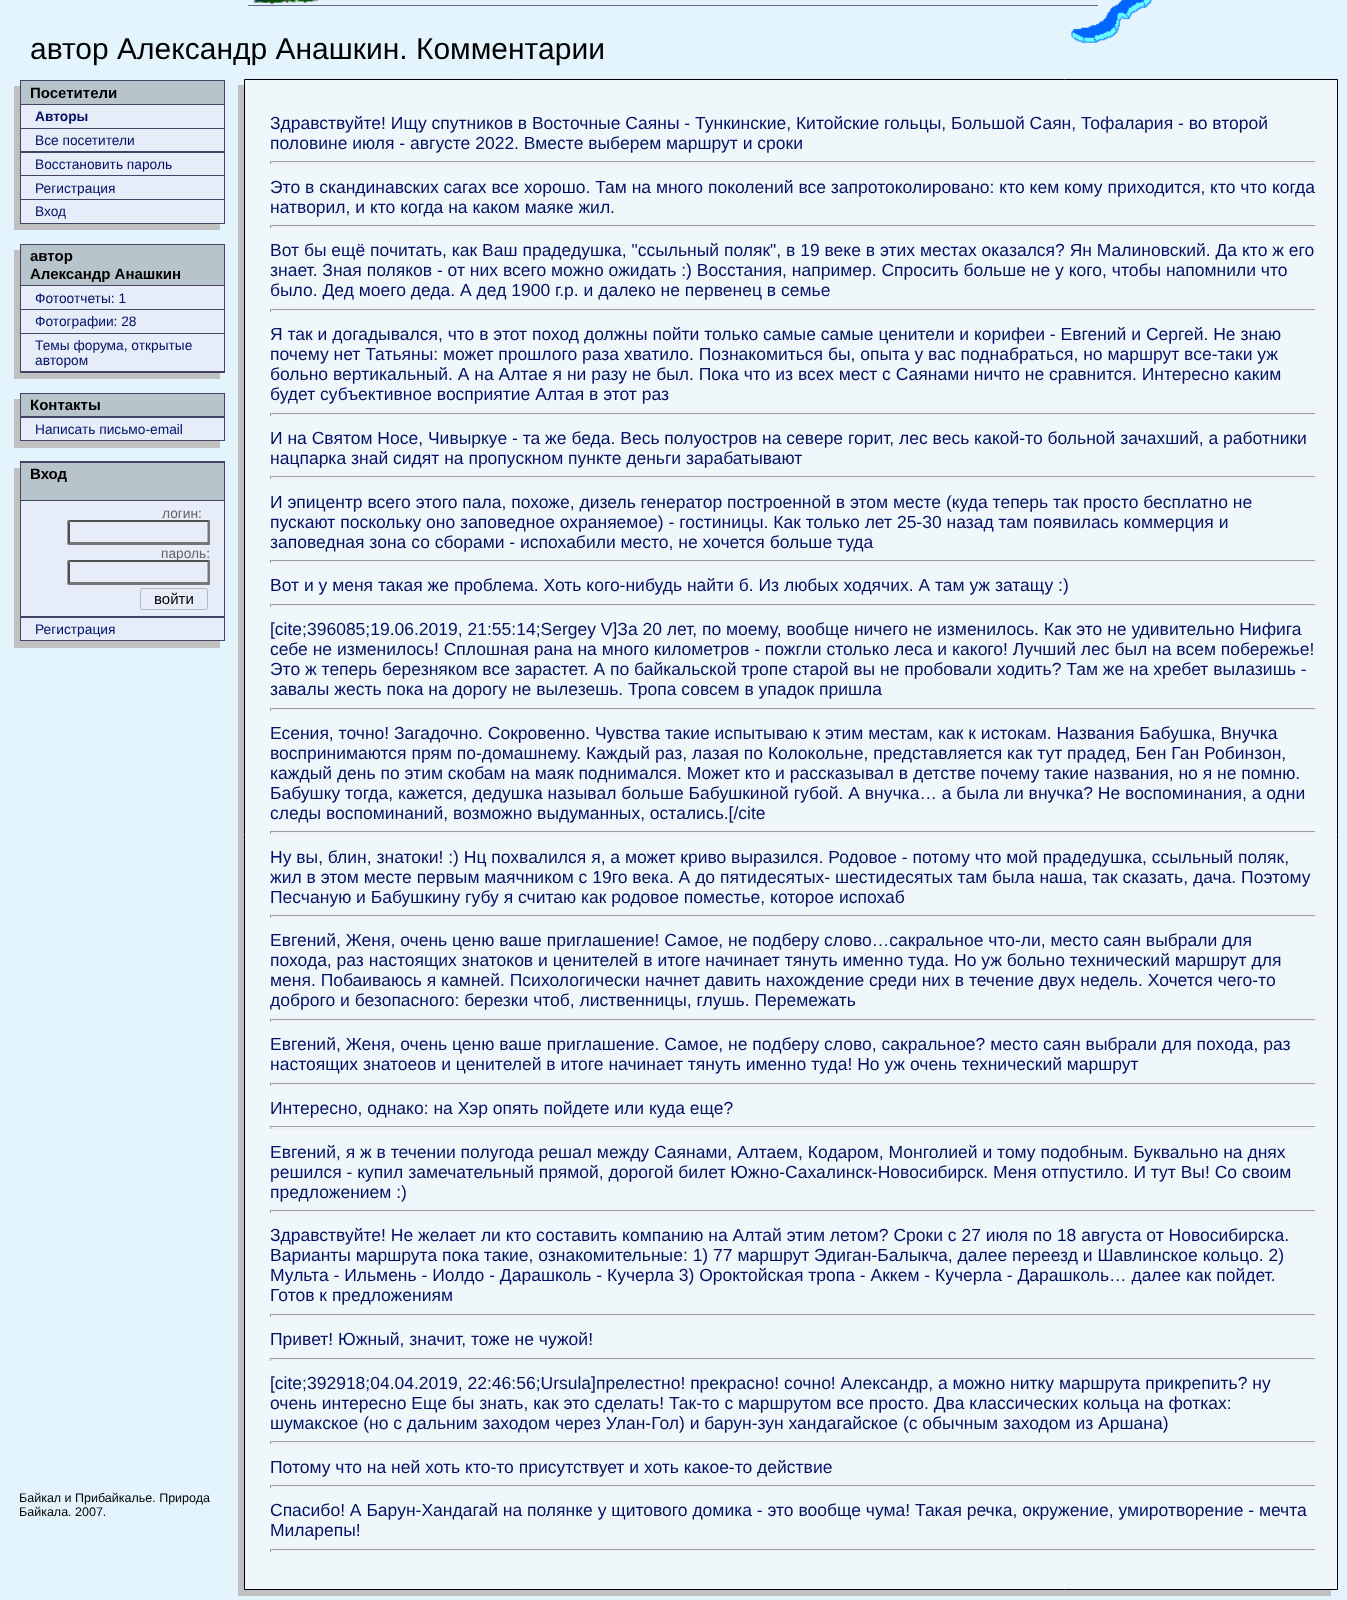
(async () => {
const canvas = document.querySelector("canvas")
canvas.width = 1347
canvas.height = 1600
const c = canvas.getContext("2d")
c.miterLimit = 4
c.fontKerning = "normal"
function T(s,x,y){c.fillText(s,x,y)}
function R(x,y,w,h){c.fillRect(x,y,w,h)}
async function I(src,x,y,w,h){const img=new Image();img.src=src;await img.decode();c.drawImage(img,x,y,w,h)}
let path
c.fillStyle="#e3f4fc"
R(0,0,1347,1600)
await I("1.png",253,0,66,5)
await I("2.png",1071,0,82,43)
c.fillStyle="#669"
R(248,5,850,1)
c.font="30px Liberation Sans"
c.fillStyle="#000"
T("автор Александр Анашкин. Комментарии",30,59)
c.fillStyle="#c0c0c0"
path = new Path2D("M14 86v144h206v-6h-200v-138z")
c.fill(path)
c.fillStyle="#444464"
R(20,80,205,144)
c.fillStyle="#b8c4cc"
R(21,81,203,23)
c.font="bold 15px Liberation Sans"
c.fillStyle="#000"
T("Посетители",30,98)
c.fillStyle="#e6ecf8"
R(21,105,203,23)
c.font="bold 13.75px Liberation Sans"
c.fillStyle="#016"
T("Авторы",35,121)
c.fillStyle="#e6ecf8"
R(21,129,203,22)
c.font="13.75px Liberation Sans"
c.fillStyle="#016"
T("Все посетители",35,145)
c.fillStyle="#e6ecf8"
R(21,153,203,22)
c.fillStyle="#016"
T("Восстановить пароль",35,169)
c.fillStyle="#e6ecf8"
R(21,176,203,23)
c.fillStyle="#016"
T("Регистрация",35,193)
c.fillStyle="#e6ecf8"
R(21,200,203,23)
c.fillStyle="#016"
T("Вход",35,216)
c.fillStyle="#c0c0c0"
path = new Path2D("M14 250v129h206v-7h-200v-122z")
c.fill(path)
c.fillStyle="#444464"
R(20,244,205,129)
c.fillStyle="#b8c4cc"
R(21,245,203,40)
c.font="bold 15px Liberation Sans"
c.fillStyle="#000"
T("автор",30,261)
T("Александр Анашкин",30,279)
c.fillStyle="#e6ecf8"
R(21,286,203,23)
c.font="13.75px Liberation Sans"
c.fillStyle="#016"
T("Фотоотчеты: 1",35,303)
c.fillStyle="#e6ecf8"
R(21,310,203,23)
c.fillStyle="#016"
T("Фотографии: 28",35,326)
c.fillStyle="#e6ecf8"
R(21,334,203,37)
c.fillStyle="#016"
T("Темы форума, открытые",35,350)
T("автором",35,365)
c.fillStyle="#c0c0c0"
path = new Path2D("M14 399v49h206v-7h-200v-42z")
c.fill(path)
c.fillStyle="#444464"
R(20,393,205,48)
c.fillStyle="#b8c4cc"
R(21,394,203,22)
c.font="bold 15px Liberation Sans"
c.fillStyle="#000"
T("Контакты",30,410)
c.fillStyle="#e6ecf8"
R(21,418,203,22)
c.font="13.75px Liberation Sans"
c.fillStyle="#016"
T("Написать письмо-email",35,434)
c.fillStyle="#c0c0c0"
path = new Path2D("M14 468v180h206v-7h-200v-173z")
c.fill(path)
c.fillStyle="#444464"
R(20,461,205,180)
c.fillStyle="#b8c4cc"
R(21,463,203,37)
c.font="bold 15px Liberation Sans"
c.fillStyle="#000"
T("Вход",30,479)
c.fillStyle="#e6ecf8"
R(21,501,203,115)
c.font="13.75px Liberation Sans"
c.fillStyle="#666"
T("логин:",162,518)
c.fillStyle="#4f4f4f"
path = new Path2D("M68 520h142l-2 2h-138z")
c.fill(path)
c.fillStyle="#767676"
path = new Path2D("M210 520v25l-2.5-2.5v-20z")
c.fill(path)
path = new Path2D("M210 545h-142l2-3h138z")
c.fill(path)
c.fillStyle="#4f4f4f"
path = new Path2D("M67.5 545v-25l2.5 2.5v20z")
c.fill(path)
c.fillStyle="#666"
T("пароль:",161,558)
c.fillStyle="#e6ecf8"
R(176,560,3,1)
c.fillStyle="#4f4f4f"
path = new Path2D("M68 560h142l-2 2h-138z")
c.fill(path)
c.fillStyle="#767676"
path = new Path2D("M210 560v25l-2.5-2.5v-20z")
c.fill(path)
path = new Path2D("M210 585h-142l2-3h138z")
c.fill(path)
c.fillStyle="#4f4f4f"
path = new Path2D("M67.5 585v-25l2.5 2.5v20z")
c.fill(path)
c.beginPath()
c.roundRect(140.5,588.5,67,21,2)
c.strokeStyle="#b4b8bc"
c.stroke()
c.font="15px Liberation Sans"
c.fillStyle="#000"
T("войти",154,604)
c.fillStyle="#e6ecf8"
R(21,618,203,22)
c.font="13.75px Liberation Sans"
c.fillStyle="#016"
T("Регистрация",35,634)
c.fillStyle="#c0c0c0"
path = new Path2D("M238 85v1511h1093v-6h-1087v-1505z")
c.fill(path)
c.fillStyle="#f0f7fa"
c.beginPath()
c.rect(244.5,79.5,1093,1510)
c.fill()
c.strokeStyle="#000"
c.stroke()
c.font="17.5px Liberation Sans"
c.fillStyle="#016"
T("Здравствуйте! Ищу спутников в Восточные Саяны - Тункинские, Китойские гольцы, Большой Саян, Тофалария - во второй",270,129)
T("половине июля - августе 2022. Вместе выберем маршрут и сроки",270,149)
c.fillStyle="#9f9f9f"
R(270,161,1046,1)
c.fillStyle="#eee"
R(1315,161,1,3)
R(270,163,1046,1)
c.fillStyle="#9f9f9f"
R(270,161,1,3)
c.fillStyle="#016"
T("Это в скандинавских сагах все хорошо. Там на много поколений все запротоколировано: кто кем кому приходится, кто что когда",270,193)
T("натворил, и кто когда на каком маяке жил.",270,213)
c.fillStyle="#9f9f9f"
R(270,225,1046,1)
c.fillStyle="#eee"
R(1315,225,1,3)
R(270,226,1046,1)
c.fillStyle="#9f9f9f"
R(270,225,1,3)
c.fillStyle="#016"
T("Вот бы ещё почитать, как Ваш прадедушка, \"ссыльный поляк\", в 19 веке в этих местах оказался? Ян Малиновский. Да кто ж его",270,256)
T("знает. Зная поляков - от них всего можно ожидать :) Восстания, например. Спросить больше не у кого, чтобы напомнили что",270,276)
T("было. Дед моего деда. А дед 1900 г.р. и далеко не первенец в семье",270,296)
c.fillStyle="#9f9f9f"
R(270,309,1046,1)
c.fillStyle="#eee"
R(1315,309,1,3)
R(270,310,1046,1)
c.fillStyle="#9f9f9f"
R(270,309,1,3)
c.fillStyle="#016"
T("Я так и догадывался, что в этот поход должны пойти только самые самые ценители и корифеи - Евгений и Сергей. Не знаю",270,340)
T("почему нет Татьяны: может прошлого раза хватило. Познакомиться бы, опыта у вас поднабраться, но маршрут все-таки уж",270,360)
T("больно вертикальный. А на Алтае я ни разу не был. Пока что из всех мест с Саянами ничто не сравнится. Интересно каким",270,380)
T("будет субъективное восприятие Алтая в этот раз",270,400)
c.fillStyle="#9f9f9f"
R(270,413,1046,1)
c.fillStyle="#eee"
R(1315,413,1,3)
R(270,414,1046,1)
c.fillStyle="#9f9f9f"
R(270,413,1,3)
c.fillStyle="#016"
T("И на Святом Носе, Чивыркуе - та же беда. Весь полуостров на севере горит, лес весь какой-то больной зачахший, а работники",270,444)
T("нацпарка знай сидят на пропускном пункте деньги зарабатывают",270,464)
c.fillStyle="#9f9f9f"
R(270,476,1046,1)
c.fillStyle="#eee"
R(1315,476,1,3)
R(270,478,1046,1)
c.fillStyle="#9f9f9f"
R(270,476,1,3)
c.fillStyle="#016"
T("И эпицентр всего этого пала, похоже, дизель генератор построенной в этом месте (куда теперь так просто бесплатно не",270,508)
T("пускают поскольку оно заповедное охраняемое) - гостиницы. Как только лет 25-30 назад там появилась коммерция и",270,528)
T("заповедная зона со сборами - испохабили место, не хочется больше туда",270,548)
c.fillStyle="#9f9f9f"
R(270,560,1046,1)
c.fillStyle="#eee"
R(1315,560,1,3)
R(270,561,1046,1)
c.fillStyle="#9f9f9f"
R(270,560,1,3)
c.fillStyle="#016"
T("Вот и у меня такая же проблема. Хоть кого-нибудь найти б. Из любых ходячих. А там уж затащу :)",270,591)
c.fillStyle="#9f9f9f"
R(270,604,1046,1)
c.fillStyle="#eee"
R(1315,604,1,3)
R(270,605,1046,1)
c.fillStyle="#9f9f9f"
R(270,604,1,3)
c.fillStyle="#016"
T("[cite;396085;19.06.2019, 21:55:14;Sergey V]За 20 лет, по моему, вообще ничего не изменилось. Как это не удивительно Нифига",270,635)
T("себе не изменилось! Сплошная рана на много километров - пожгли столько леса и какого! Лучший лес был на всем побережье!",270,655)
T("Это ж теперь березняком все зарастет. А по байкальской тропе старой вы не пробовали ходить? Там же на хребет вылазишь -",270,675)
T("завалы жесть пока на дорогу не вылезешь. Тропа совсем в упадок пришла",270,695)
c.fillStyle="#9f9f9f"
R(270,708,1046,1)
c.fillStyle="#eee"
R(1315,708,1,3)
R(270,709,1046,1)
c.fillStyle="#9f9f9f"
R(270,708,1,3)
c.fillStyle="#016"
T("Есения, точно! Загадочно. Сокровенно. Чувства такие испытываю к этим местам, как к истокам. Названия Бабушка, Внучка",270,739)
T("воспринимаются прям по-домашнему. Каждый раз, лазая по Колокольне, представляется как тут прадед, Бен Ган Робинзон,",270,759)
T("каждый день по этим скобам на маяк поднимался. Может кто и рассказывал в детстве почему такие названия, но я не помню.",270,779)
T("Бабушку тогда, кажется, дедушка называл больше Бабушкиной губой. А внучка… а была ли внучка? Не воспоминания, а одни",270,799)
T("следы воспоминаний, возможно выдуманных, остались.[/cite",270,819)
c.fillStyle="#9f9f9f"
R(270,831,1046,1)
c.fillStyle="#eee"
R(1315,831,1,3)
R(270,833,1046,1)
c.fillStyle="#9f9f9f"
R(270,831,1,3)
c.fillStyle="#016"
T("Ну вы, блин, знатоки! :) Нц похвалился я, а может криво выразился. Родовое - потому что мой прадедушка, ссыльный поляк,",270,863)
T("жил в этом месте первым маячником с 19го века. А до пятидесятых- шестидесятых там была наша, так сказать, дача. Поэтому",270,883)
T("Песчаную и Бабушкину губу я считаю как родовое поместье, которое испохаб",270,903)
c.fillStyle="#9f9f9f"
R(270,915,1046,1)
c.fillStyle="#eee"
R(1315,915,1,3)
R(270,916,1046,1)
c.fillStyle="#9f9f9f"
R(270,915,1,3)
c.fillStyle="#016"
T("Евгений, Женя, очень ценю ваше приглашение! Самое, не подберу слово…сакральное что-ли, место саян выбрали для",270,946)
T("похода, раз настоящих знатоков и ценителей в итоге начинает тянуть именно туда. Но уж больно технический маршрут для",270,966)
T("меня. Побаиваюсь я камней. Психологически начнет давить нахождение среди них в течение двух недель. Хочется чего-то",270,986)
T("доброго и безопасного: березки чтоб, лиственницы, глушь. Перемежать",270,1006)
c.fillStyle="#9f9f9f"
R(270,1019,1046,1)
c.fillStyle="#eee"
R(1315,1019,1,3)
R(270,1020,1046,1)
c.fillStyle="#9f9f9f"
R(270,1019,1,3)
c.fillStyle="#016"
T("Евгений, Женя, очень ценю ваше приглашение. Самое, не подберу слово, сакральное? место саян выбрали для похода, раз",270,1050)
T("настоящих знатоеов и ценителей в итоге начинает тянуть именно туда! Но уж очень технический маршрут",270,1070)
c.fillStyle="#9f9f9f"
R(270,1083,1046,1)
c.fillStyle="#eee"
R(1315,1083,1,3)
R(270,1084,1046,1)
c.fillStyle="#9f9f9f"
R(270,1083,1,3)
c.fillStyle="#016"
T("Интересно, однако: на Хэр опять пойдете или куда еще?",270,1114)
c.fillStyle="#9f9f9f"
R(270,1126,1046,1)
c.fillStyle="#eee"
R(1315,1126,1,3)
R(270,1128,1046,1)
c.fillStyle="#9f9f9f"
R(270,1126,1,3)
c.fillStyle="#016"
T("Евгений, я ж в течении полугода решал между Саянами, Алтаем, Кодаром, Монголией и тому подобным. Буквально на днях",270,1158)
T("решился - купил замечательный прямой, дорогой билет Южно-Сахалинск-Новосибирск. Меня отпустило. И тут Вы! Со своим",270,1178)
T("предложением :)",270,1198)
c.fillStyle="#9f9f9f"
R(270,1210,1046,1)
c.fillStyle="#eee"
R(1315,1210,1,3)
R(270,1211,1046,1)
c.fillStyle="#9f9f9f"
R(270,1210,1,3)
c.fillStyle="#016"
T("Здравствуйте! Не желает ли кто составить компанию на Алтай этим летом? Сроки с 27 июля по 18 августа от Новосибирска.",270,1241)
T("Варианты маршрута пока такие, ознакомительные: 1) 77 маршрут Эдиган-Балыкча, далее переезд и Шавлинское кольцо. 2)",270,1261)
T("Мульта - Ильмень - Иолдо - Дарашколь - Кучерла 3) Ороктойская тропа - Аккем - Кучерла - Дарашколь… далее как пойдет.",270,1281)
T("Готов к предложениям",270,1301)
c.fillStyle="#9f9f9f"
R(270,1314,1046,1)
c.fillStyle="#eee"
R(1315,1314,1,3)
R(270,1315,1046,1)
c.fillStyle="#9f9f9f"
R(270,1314,1,3)
c.fillStyle="#016"
T("Привет! Южный, значит, тоже не чужой!",270,1345)
c.fillStyle="#9f9f9f"
R(270,1358,1046,1)
c.fillStyle="#eee"
R(1315,1358,1,3)
R(270,1359,1046,1)
c.fillStyle="#9f9f9f"
R(270,1358,1,3)
c.fillStyle="#016"
T("[cite;392918;04.04.2019, 22:46:56;Ursula]прелестно! прекрасно! сочно! Александр, а можно нитку маршрута прикрепить? ну",270,1389)
T("очень интересно Еще бы знать, как это сделать! Так-то с маршрутом все просто. Два классических кольца на фотках:",270,1409)
T("шумакское (но с дальним заходом через Улан-Гол) и барун-зун хандагайское (с обычным заходом из Аршана)",270,1429)
c.fillStyle="#9f9f9f"
R(270,1441,1046,1)
c.fillStyle="#eee"
R(1315,1441,1,3)
R(270,1443,1046,1)
c.fillStyle="#9f9f9f"
R(270,1441,1,3)
c.fillStyle="#016"
T("Потому что на ней хоть кто-то присутствует и хоть какое-то действие",270,1473)
c.fillStyle="#9f9f9f"
R(270,1485,1046,1)
c.fillStyle="#eee"
R(1315,1485,1,3)
R(270,1486,1046,1)
c.fillStyle="#9f9f9f"
R(270,1485,1,3)
c.fillStyle="#016"
T("Спасибо! А Барун-Хандагай на полянке у щитового домика - это вообще чума! Такая речка, окружение, умиротворение - мечта",270,1516)
T("Миларепы!",270,1536)
c.fillStyle="#9f9f9f"
R(270,1549,1046,1)
c.fillStyle="#eee"
R(1315,1549,1,3)
R(270,1550,1046,1)
c.fillStyle="#9f9f9f"
R(270,1549,1,3)
c.font="12.5px Liberation Sans"
c.fillStyle="#000"
T("Байкал и Прибайкалье. Природа",19,1502)
T("Байкала. 2007.",19,1516)
})()
